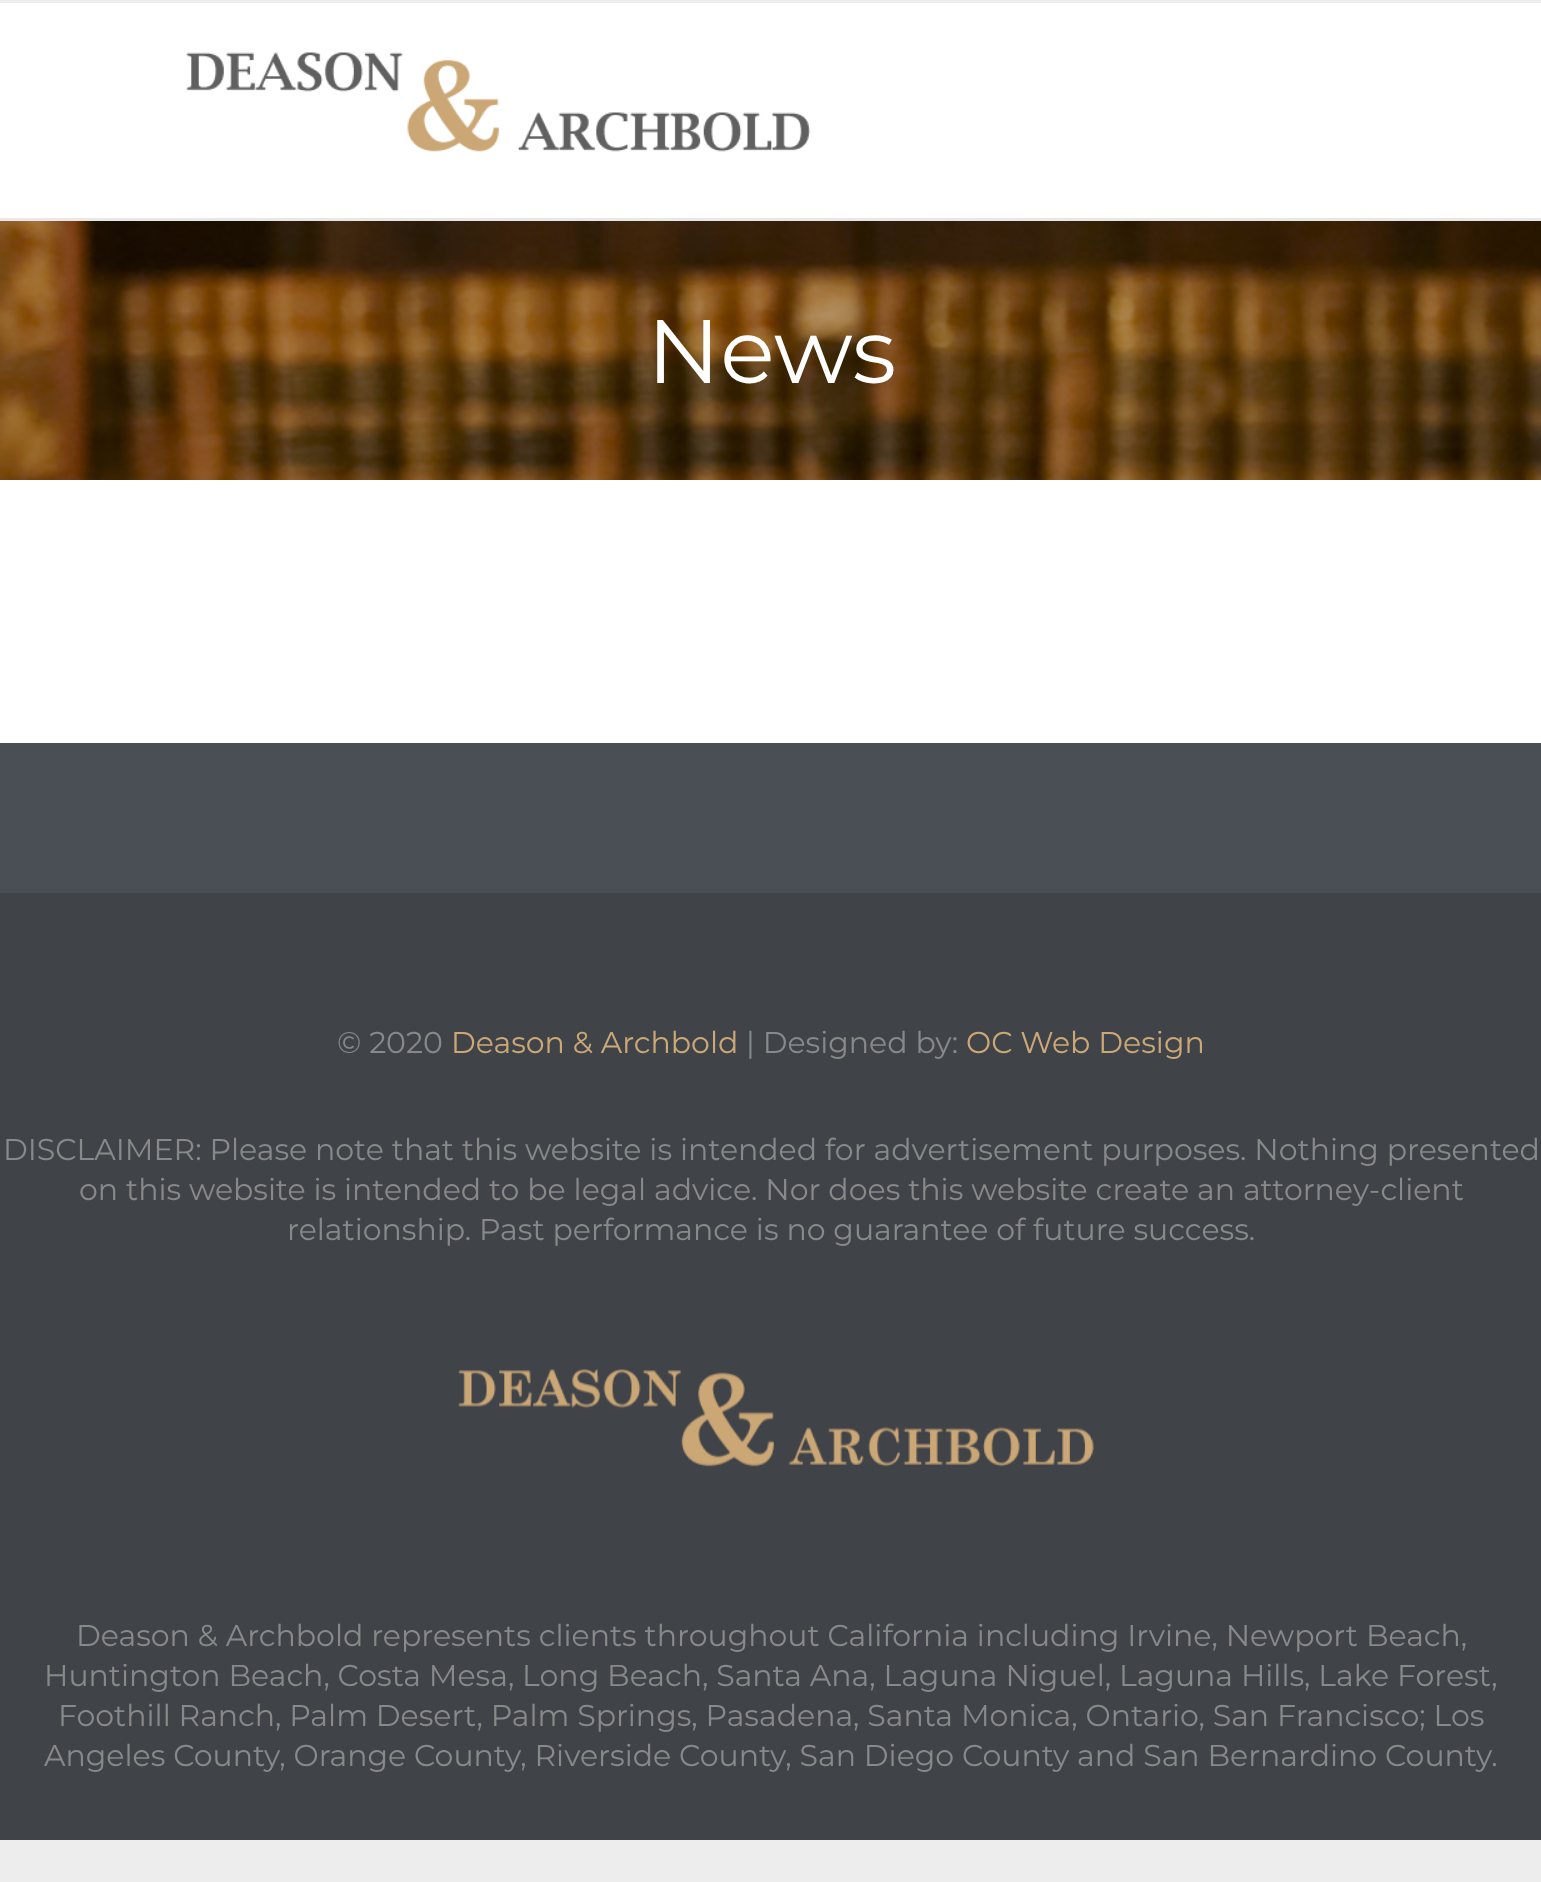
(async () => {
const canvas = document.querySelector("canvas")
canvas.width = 1541
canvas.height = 1882
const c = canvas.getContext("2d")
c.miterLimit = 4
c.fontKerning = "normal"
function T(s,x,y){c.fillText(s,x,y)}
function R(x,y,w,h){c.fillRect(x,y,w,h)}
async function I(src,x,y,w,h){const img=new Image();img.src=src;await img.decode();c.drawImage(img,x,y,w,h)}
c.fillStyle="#ededed"
R(0,0,1541,1882)
c.fillStyle="#fff"
R(0,3,1541,215)
c.fillStyle="#e8e8e8"
R(0,218,1541,3)
await I("1.png",186,52,625,100)
await I("2.png",0,221,1541,259)
c.font="90px Montserrat"
c.fillStyle="#fff"
T("News",647,383)
R(0,480,1541,263)
c.fillStyle="#4a4f55"
R(0,743,1541,150)
c.fillStyle="#404449"
R(0,893,1541,947)
c.font="30px Montserrat"
c.fillStyle="#898989"
T("© 2020",337,1053)
c.fillStyle="#cca876"
T("Deason & Archbold",451,1053)
c.fillStyle="#898989"
T("| Designed by:",746,1053)
c.fillStyle="#cca876"
T("OC Web Design",966,1053)
c.fillStyle="#898989"
T("DISCLAIMER: Please note that this website is intended for advertisement purposes. Nothing presented",3,1160)
T("on this website is intended to be legal advice. Nor does this website create an attorney-client",79,1200)
T("relationship. Past performance is no guarantee of future success.",287,1240)
await I("3.png",458,1369,636,98)
T("Deason & Archbold represents clients throughout California including Irvine, Newport Beach,",76,1646)
T("Huntington Beach, Costa Mesa, Long Beach, Santa Ana, Laguna Niguel, Laguna Hills, Lake Forest,",44,1686)
T("Foothill Ranch, Palm Desert, Palm Springs, Pasadena, Santa Monica, Ontario, San Francisco; Los",58,1726)
T("Angeles County, Orange County, Riverside County, San Diego County and San Bernardino County.",44,1766)
})()
